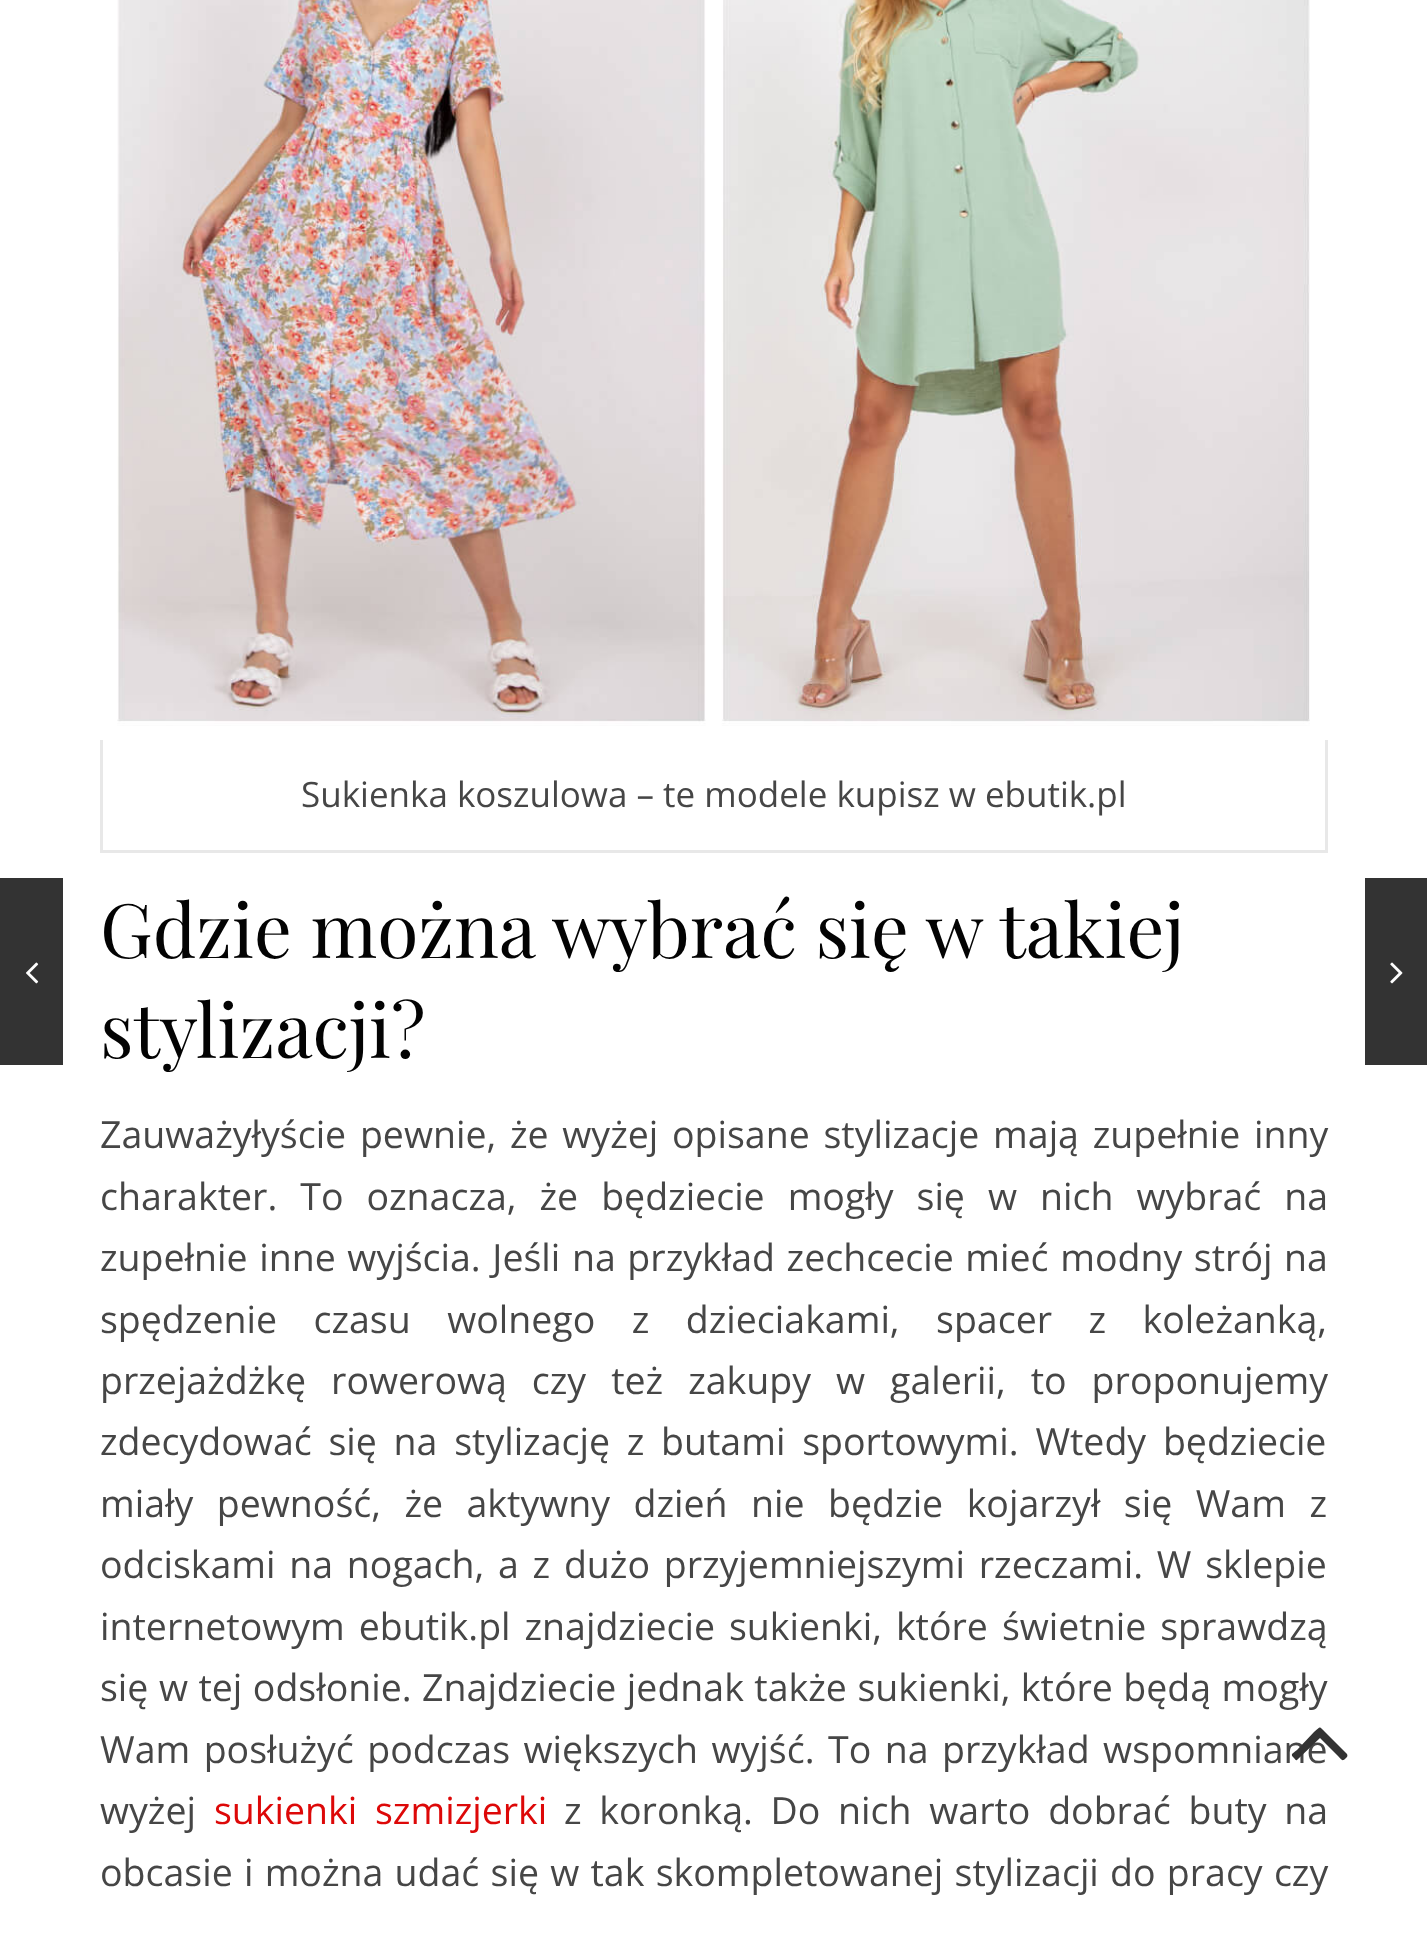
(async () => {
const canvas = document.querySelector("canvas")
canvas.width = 1427
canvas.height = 1940
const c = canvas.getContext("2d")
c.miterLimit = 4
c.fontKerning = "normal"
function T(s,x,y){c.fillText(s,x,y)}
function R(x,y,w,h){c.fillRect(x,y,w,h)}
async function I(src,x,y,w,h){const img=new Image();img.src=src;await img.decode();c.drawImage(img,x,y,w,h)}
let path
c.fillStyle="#fff"
R(0,0,1427,1940)
c.fillStyle="#333"
R(0,878,63,187)
await I("1.png",26,962,13,22)
await I("2.png",117,0,1193,726)
c.fillStyle="#e8e8e8"
R(1325,740,3,113)
R(100,850,1228,3)
R(100,740,3,113)
c.font="35px Open Sans"
c.fillStyle="#464646"
T("Sukienka koszulowa – te modele kupisz w ebutik.pl",301,807)
c.font="75px Playfair Display"
c.fillStyle="#030303"
T("Gdzie można wybrać się w takiej",100,958)
T("stylizacji?",100,1058)
c.wordSpacing="4px"
c.font="37.5px Open Sans"
c.fillStyle="#464646"
T("Zauważyłyście pewnie, że wyżej opisane stylizacje mają zupełnie inny",100,1148)
c.wordSpacing="13.25px"
T("charakter. To oznacza, że będziecie mogły się w nich wybrać na",100,1210)
c.wordSpacing="1.9px"
T("zupełnie inne wyjścia. Jeśli na przykład zechcecie mieć modny strój na",100,1271)
c.wordSpacing="26.75px"
T("spędzenie czasu wolnego z dzieciakami, spacer z koleżanką,",100,1333)
c.wordSpacing="15.25px"
T("przejażdżkę rowerową czy też zakupy w galerii, to proponujemy",100,1394)
c.wordSpacing="7px"
T("zdecydować się na stylizację z butami sportowymi. Wtedy będziecie",100,1455)
c.wordSpacing="13.75px"
T("miały pewność, że aktywny dzień nie będzie kojarzył się Wam z",100,1517)
c.wordSpacing="4px"
T("odciskami na nogach, a z dużo przyjemniejszymi rzeczami. W sklepie",100,1578)
c.wordSpacing="4.25px"
T("internetowym ebutik.pl znajdziecie sukienki, które świetnie sprawdzą",100,1640)
c.wordSpacing="0.75px"
T("się w tej odsłonie. Znajdziecie jednak także sukienki, które będą mogły",100,1701)
c.wordSpacing="3.75px"
T("Wam posłużyć podczas większych wyjść. To na przykład wspomniane",100,1763)
c.wordSpacing="0px"
T("wyżej",100,1824)
c.wordSpacing="8px"
c.fillStyle="#dd0808"
T("sukienki szmizjerki",214,1824)
c.fillStyle="#464646"
T("z koronką. Do nich warto dobrać buty na",564,1824)
c.wordSpacing="1.5px"
T("obcasie i można udać się w tak skompletowanej stylizacji do pracy czy",100,1886)
c.fillStyle="#333"
R(1365,878,62,187)
await I("3.png",1390,962,13,22)
path = new Path2D("M1347 1754c1 2 0 3-1 4c-4 4-4 2-8-2l-18-18l-23 22c-1 1-2-1-3-2c-4-4-2-4 3-8l17-18c7-6 5-6 11 0z")
c.fill(path)
})()
